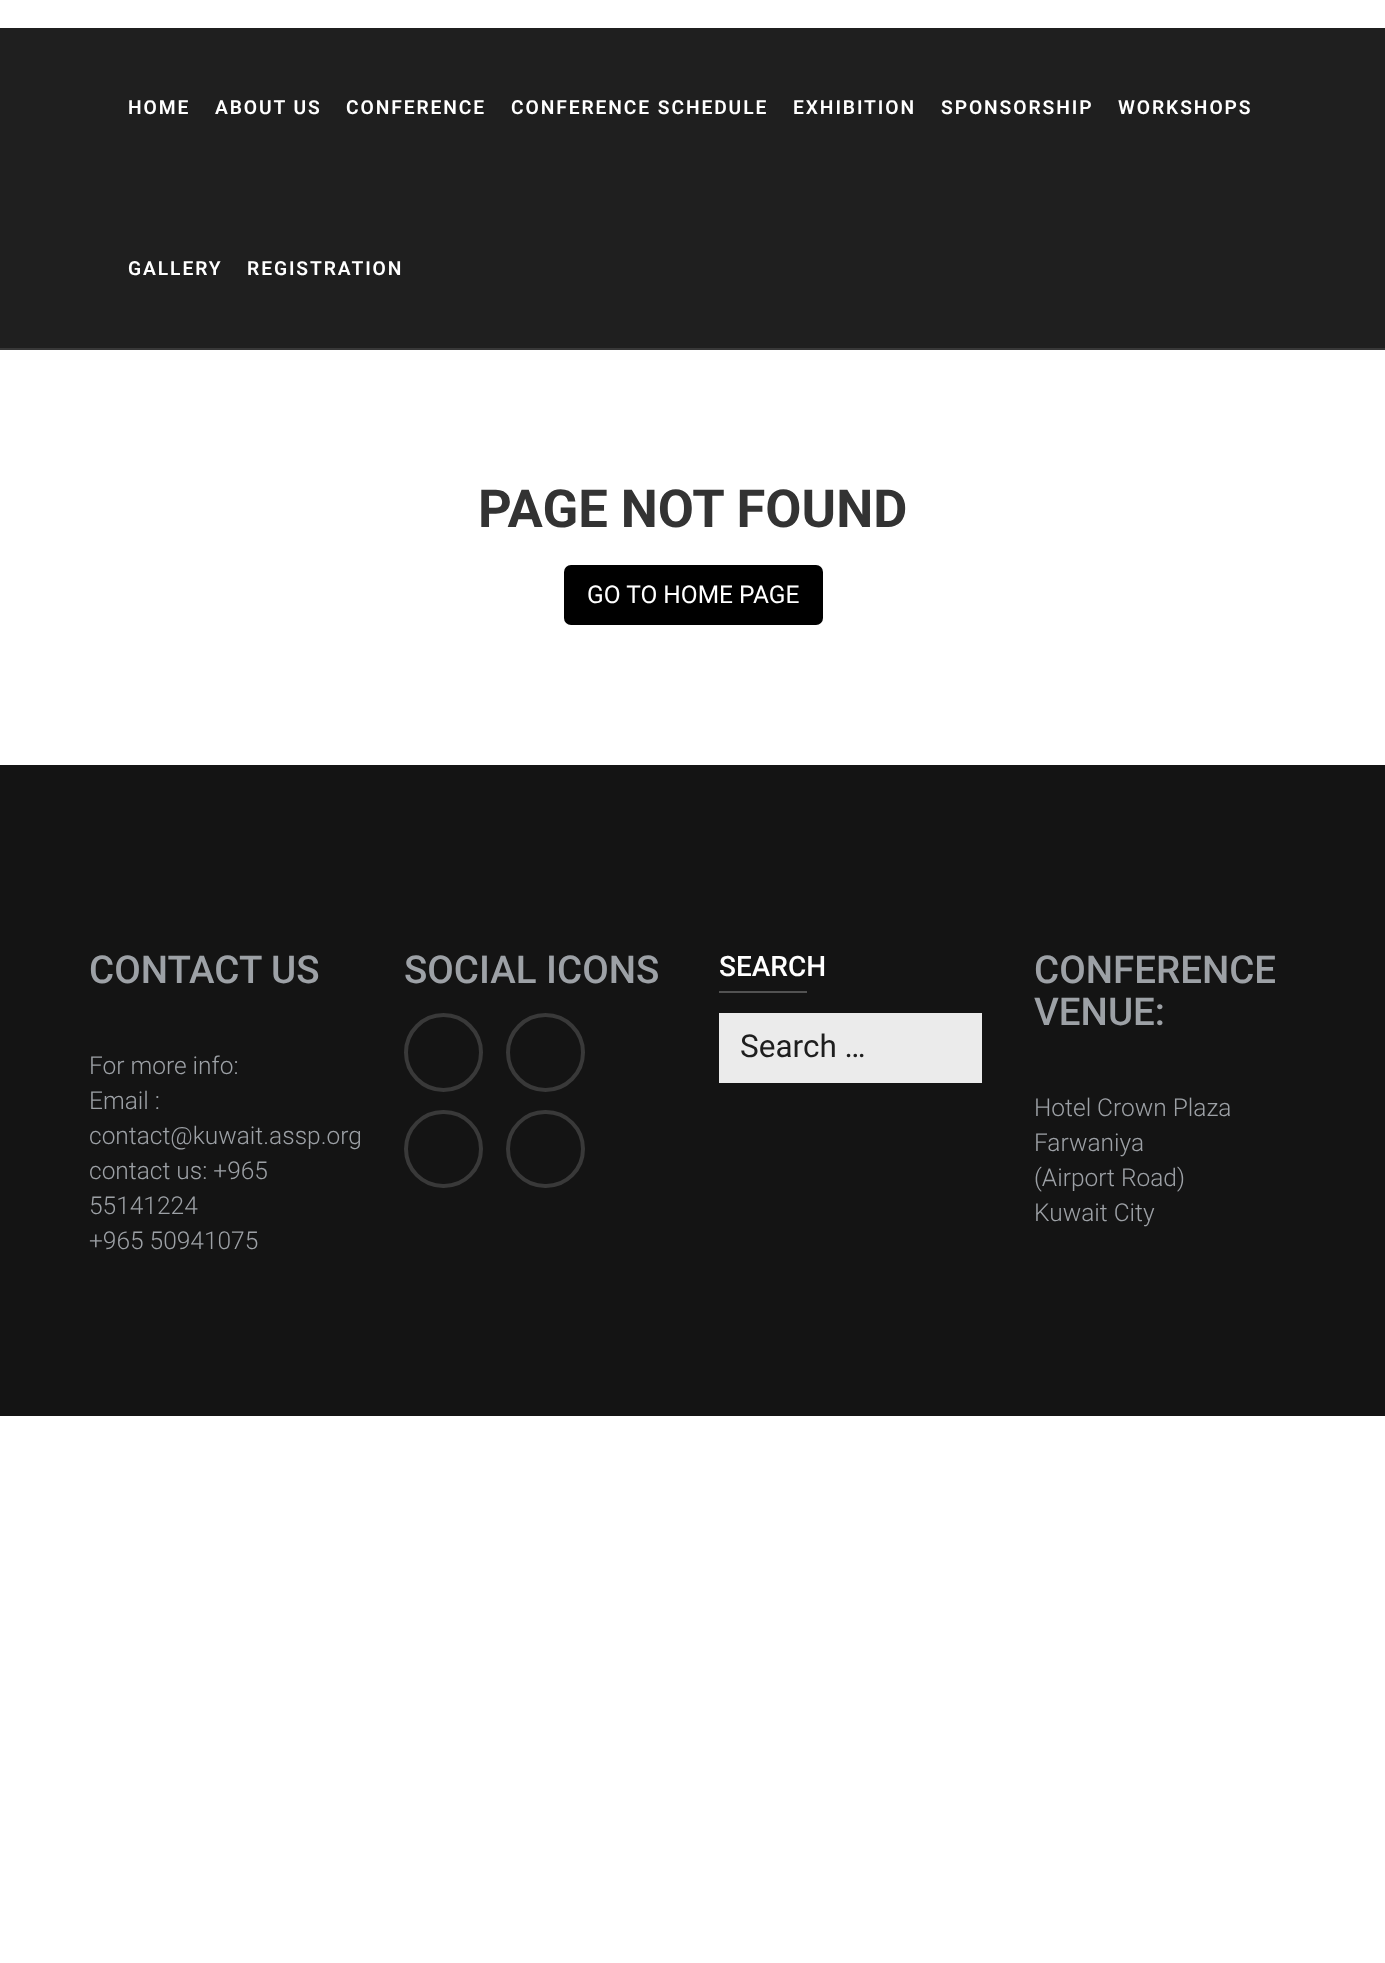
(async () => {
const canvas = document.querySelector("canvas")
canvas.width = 1385
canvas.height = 1963
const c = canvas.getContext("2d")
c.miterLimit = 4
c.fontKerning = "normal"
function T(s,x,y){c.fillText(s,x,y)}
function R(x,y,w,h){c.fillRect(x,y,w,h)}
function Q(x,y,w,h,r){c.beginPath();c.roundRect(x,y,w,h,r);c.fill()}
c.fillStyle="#fff"
R(0,0,1385,1963)
c.fillStyle="#1f1f1f"
R(0,28,1385,320)
c.letterSpacing="1.9px"
c.font="600 19.25px Roboto"
c.fillStyle="#fff"
T("HOME",128,114)
T("ABOUT US",215,114)
T("CONFERENCE",346,114)
T("CONFERENCE SCHEDULE",511,114)
T("EXHIBITION",793,114)
T("SPONSORSHIP",941,114)
T("WORKSHOPS",1118,114)
T("GALLERY",128,275)
T("REGISTRATION",247,275)
c.fillStyle="#383838"
R(0,348,1385,2)
c.letterSpacing="0px"
c.font="bold 52.5px Roboto"
c.fillStyle="#333"
T("PAGE NOT FOUND",478,527)
c.fillStyle="#000"
Q(564,565,259,60,7)
c.font="24.5px Roboto"
c.fillStyle="#fff"
T("GO TO HOME PAGE",587,603)
c.fillStyle="#141414"
R(0,765,1385,651)
c.font="500 38.5px Roboto"
c.fillStyle="#9da1a6"
T("CONTACT US",89,983)
c.font="300 24.5px Roboto"
T("For more info:",89,1074)
T("Email :",89,1109)
T("contact@kuwait.assp.org",89,1144)
T("contact us: +965",89,1179)
T("55141224",89,1214)
T("+965 50941075",89,1249)
c.font="500 38.5px Roboto"
T("SOCIAL ICONS",404,983)
c.beginPath()
c.arc(443.5,1052.5,37.5,0,7)
c.strokeStyle="#393939"
c.lineWidth=4
c.stroke()
c.beginPath()
c.arc(545.5,1052.5,37.5,0,7)
c.stroke()
c.beginPath()
c.roundRect(406,1112,75,74,37)
c.stroke()
c.beginPath()
c.roundRect(508,1112,75,74,37)
c.stroke()
c.font="500 28px Roboto"
c.fillStyle="#fff"
T("SEARCH",719,976)
c.fillStyle="#525252"
R(719,991,88,2)
c.fillStyle="#ebebeb"
R(719,1013,263,70)
c.font="31.5px Roboto"
c.fillStyle="#1e1e1e"
T("Search …",740,1057)
c.font="500 38.5px Roboto"
c.fillStyle="#9da1a6"
T("CONFERENCE",1034,983)
T("VENUE:",1034,1025)
c.font="300 24.5px Roboto"
T("Hotel Crown Plaza",1034,1116)
T("Farwaniya",1034,1151)
T("(Airport Road)",1034,1186)
T("Kuwait City",1034,1221)
})()
